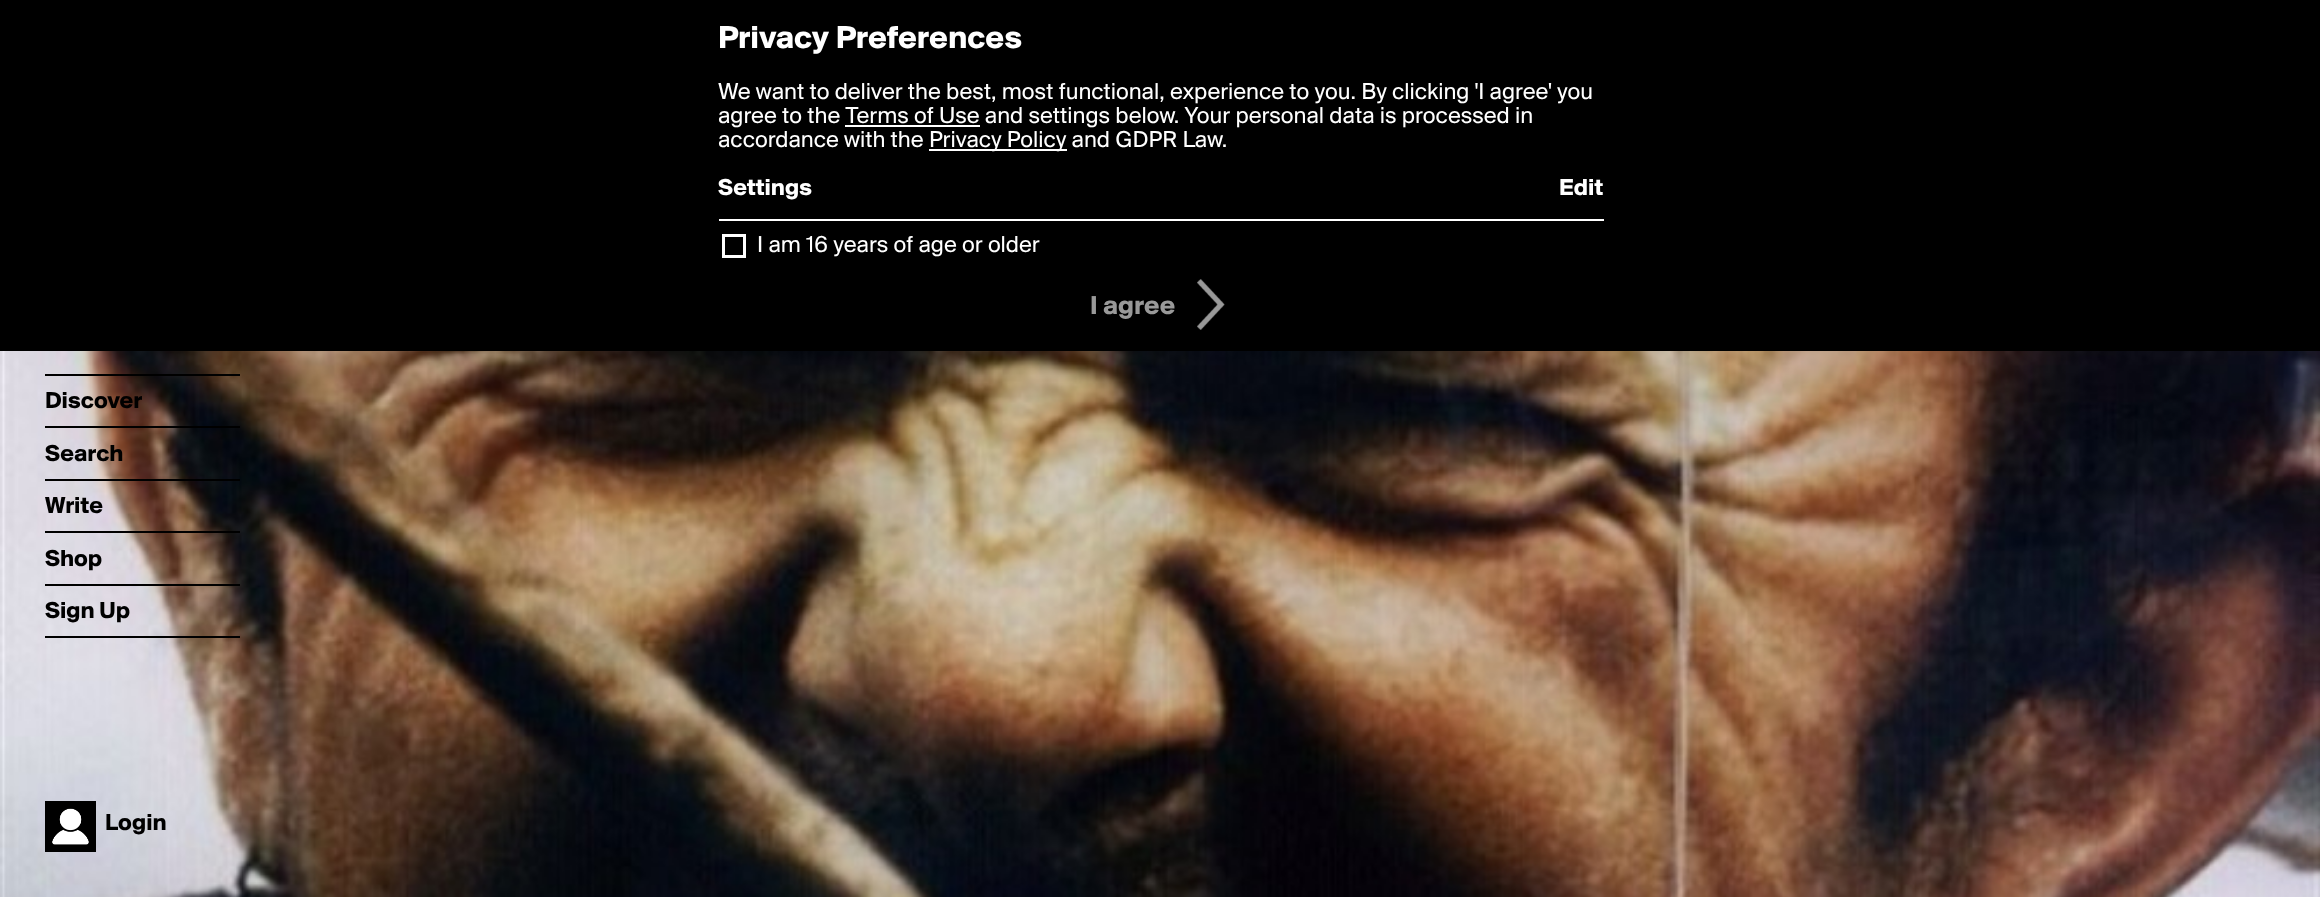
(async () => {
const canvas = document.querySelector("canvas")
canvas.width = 2320
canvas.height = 897
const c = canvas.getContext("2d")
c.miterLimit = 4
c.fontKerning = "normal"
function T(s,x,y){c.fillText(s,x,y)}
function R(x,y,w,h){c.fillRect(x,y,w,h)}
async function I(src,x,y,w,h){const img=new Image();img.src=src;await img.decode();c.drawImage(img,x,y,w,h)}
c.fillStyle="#fff"
R(0,0,2320,897)
c.fillStyle="#000"
R(0,0,2320,351)
c.font="bold 33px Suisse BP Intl"
c.fillStyle="#fff"
T("Privacy Preferences",718,48)
c.font="24px Suisse BP Intl"
T("We want to deliver the best, most functional, experience to you. By clicking 'I agree' you",718,99)
T("agree to the Terms of Use and settings below. Your personal data is processed in",718,123)
R(845,125,135,2)
T("accordance with the",718,147)
R(929,149,138,2)
T("Privacy Policy and GDPR Law.",929,147)
c.font="bold 24px Suisse BP Intl"
T("Settings",718,195)
T("Edit",1559,195)
R(719,219,885,2)
c.strokeStyle="#fff"
c.lineWidth=3
c.strokeRect(723.5,235.5,21,21)
c.font="24px Suisse BP Intl"
T("I am 16 years of age or older",757,252)
c.font="bold 27px Suisse BP Intl"
c.fillStyle="#999"
T("I agree",1090,314)
await I("1.png",1197,279,28,51)
await I("2.png",0,351,2320,546)
c.fillStyle="#000"
R(45,374,195,2)
R(45,426,195,2)
c.font="bold 24px Suisse BP Intl"
T("Discover",45,408)
R(45,479,195,2)
T("Search",45,461)
R(45,531,195,2)
T("Write",45,513)
R(45,584,195,2)
T("Shop",45,566)
R(45,636,195,2)
T("Sign Up",45,618)
await I("3.png",45,801,51,51)
T("Login",105,830)
})()
